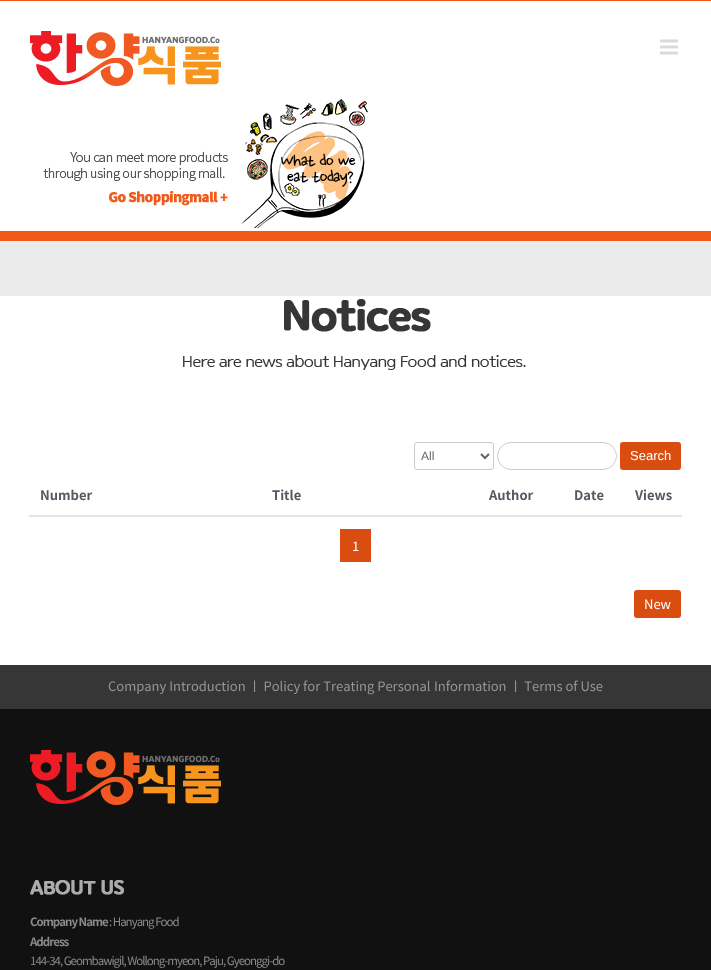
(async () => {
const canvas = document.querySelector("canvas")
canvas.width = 711
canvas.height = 970
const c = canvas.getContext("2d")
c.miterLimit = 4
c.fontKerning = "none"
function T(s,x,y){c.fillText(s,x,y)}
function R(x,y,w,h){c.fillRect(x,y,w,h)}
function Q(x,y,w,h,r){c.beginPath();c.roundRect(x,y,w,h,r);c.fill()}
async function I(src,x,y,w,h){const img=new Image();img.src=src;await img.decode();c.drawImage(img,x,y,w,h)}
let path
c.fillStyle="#ebebeb"
R(0,0,711,970)
c.fillStyle="#f05a1a"
R(0,0,711,1)
c.fillStyle="#fff"
R(0,1,711,230)
c.fillStyle="#f05a1a"
R(0,231,711,10)
await I("1.png",30,31,191,55)
await I("2.png",43,99,325,129)
await I("3.png",660,39,18,16)
c.fillStyle="#fff"
R(0,296,711,369)
await I("4.png",183,299,343,71)
c.beginPath()
c.roundRect(414.5,442.5,79,27,2.5)
c.strokeStyle="#ccc"
c.stroke()
path = new Path2D("M481 454l4 4l4-4")
c.strokeStyle="#666"
c.lineWidth=2
c.stroke(path)
c.font="12px Liberation Sans"
c.fillStyle="#666"
T("All",421,460)
c.beginPath()
c.roundRect(497.5,442.5,119,27,13.5)
c.strokeStyle="#ccc"
c.lineWidth=1
c.stroke()
c.fillStyle="#da4d10"
Q(620,442,61,28,3)
c.font="13px Liberation Sans"
c.fillStyle="#fff"
T("Search",630,460)
c.font="bold 13px Noto Sans KR"
c.fillStyle="#545861"
T("Number",40,500)
T("Title",272,500)
T("Author",489,500)
T("Date",574,500)
c.fillStyle="#e3e3e3"
R(29,515,653,2)
c.fillStyle="#545861"
T("Views",635,500)
c.fillStyle="#da4d10"
R(340,529,31,33)
c.font="13px Noto Sans KR"
c.fillStyle="#fff"
T("1",352,551)
c.fillStyle="#da4d10"
Q(634,590,47,28,3)
c.fillStyle="#fff"
T("New",644,609)
c.fillStyle="#363636"
R(0,665,711,44)
c.fillStyle="#959595"
T("Company Introduction ㅣ Policy for Treating Personal",108,691)
T("Information ㅣ Terms of Use",434,691)
c.fillStyle="#111"
R(0,709,711,261)
await I("5.png",30,750,191,55)
await I("6.png",30,880,94,15)
c.letterSpacing="-1px"
c.font="bold 11.5px Noto Sans KR"
c.fillStyle="#8c8989"
T("Company Name",30,926)
c.font="11.5px Noto Sans KR"
T(": Hanyang Food",109,926)
c.font="bold 11.5px Noto Sans KR"
T("Address",30,946)
c.font="11.5px Noto Sans KR"
T("144-34, Geombawigil, Wollong-myeon, Paju, Gyeonggi-do",30,965)
})()
